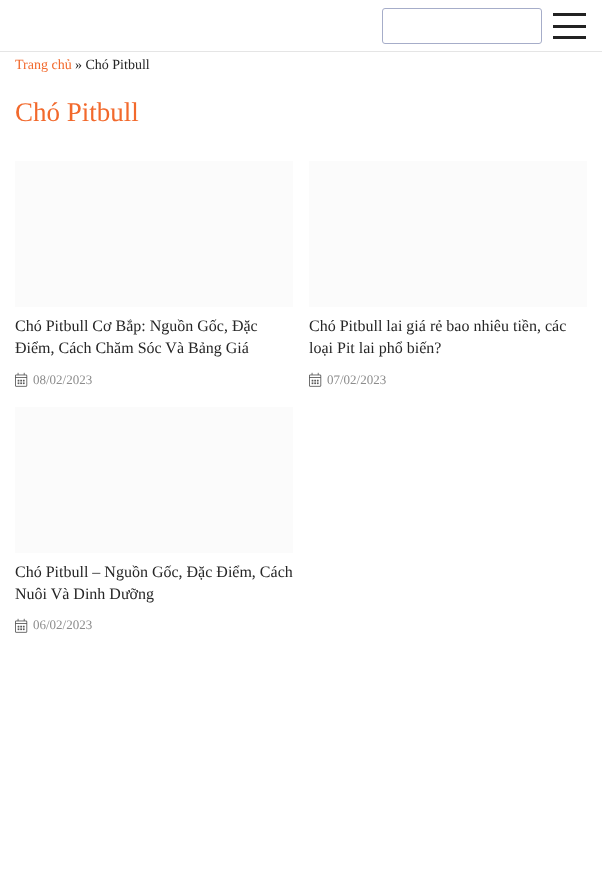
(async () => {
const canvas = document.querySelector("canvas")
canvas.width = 602
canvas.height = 895
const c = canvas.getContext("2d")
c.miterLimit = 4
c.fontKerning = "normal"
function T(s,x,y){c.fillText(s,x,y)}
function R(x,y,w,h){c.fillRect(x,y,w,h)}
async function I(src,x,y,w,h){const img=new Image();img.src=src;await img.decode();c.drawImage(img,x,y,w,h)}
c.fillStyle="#fff"
R(0,0,602,895)
c.fillStyle="#e5e5e5"
R(0,51,602,1)
c.beginPath()
c.roundRect(382.5,8.5,159,35,2.5)
c.strokeStyle="#a6adc9"
c.stroke()
c.fillStyle="#222"
R(553,13,33,3)
R(553,25,33,3)
R(553,36,33,3)
c.font="14px Liberation Serif"
c.fillStyle="#f2692c"
T("Trang chủ",15,69)
c.fillStyle="#262626"
T("» Chó Pitbull",75,69)
c.font="27px Liberation Serif"
c.fillStyle="#f2692c"
T("Chó Pitbull",15,121)
c.fillStyle="#fbfbfb"
R(15,161,278,146)
c.font="16px Liberation Serif"
c.fillStyle="#262626"
T("Chó Pitbull Cơ Bắp: Nguồn Gốc, Đặc",15,331)
T("Điểm, Cách Chăm Sóc Và Bảng Giá",15,353)
await I("1.png",15,372,13,15)
c.font="13px Liberation Serif"
c.fillStyle="#8c8c8c"
T("08/02/2023",33,384)
c.fillStyle="#fbfbfb"
R(309,161,278,146)
c.font="16px Liberation Serif"
c.fillStyle="#262626"
T("Chó Pitbull lai giá rẻ bao nhiêu tiền, các",309,331)
T("loại Pit lai phổ biến?",309,353)
await I("1.png",309,372,13,15)
c.font="13px Liberation Serif"
c.fillStyle="#8c8c8c"
T("07/02/2023",327,384)
c.fillStyle="#fbfbfb"
R(15,407,278,146)
c.font="16px Liberation Serif"
c.fillStyle="#262626"
T("Chó Pitbull – Nguồn Gốc, Đặc Điểm, Cách",15,577)
T("Nuôi Và Dinh Dưỡng",15,599)
await I("1.png",15,618,13,15)
c.font="13px Liberation Serif"
c.fillStyle="#8c8c8c"
T("06/02/2023",33,629)
})()
